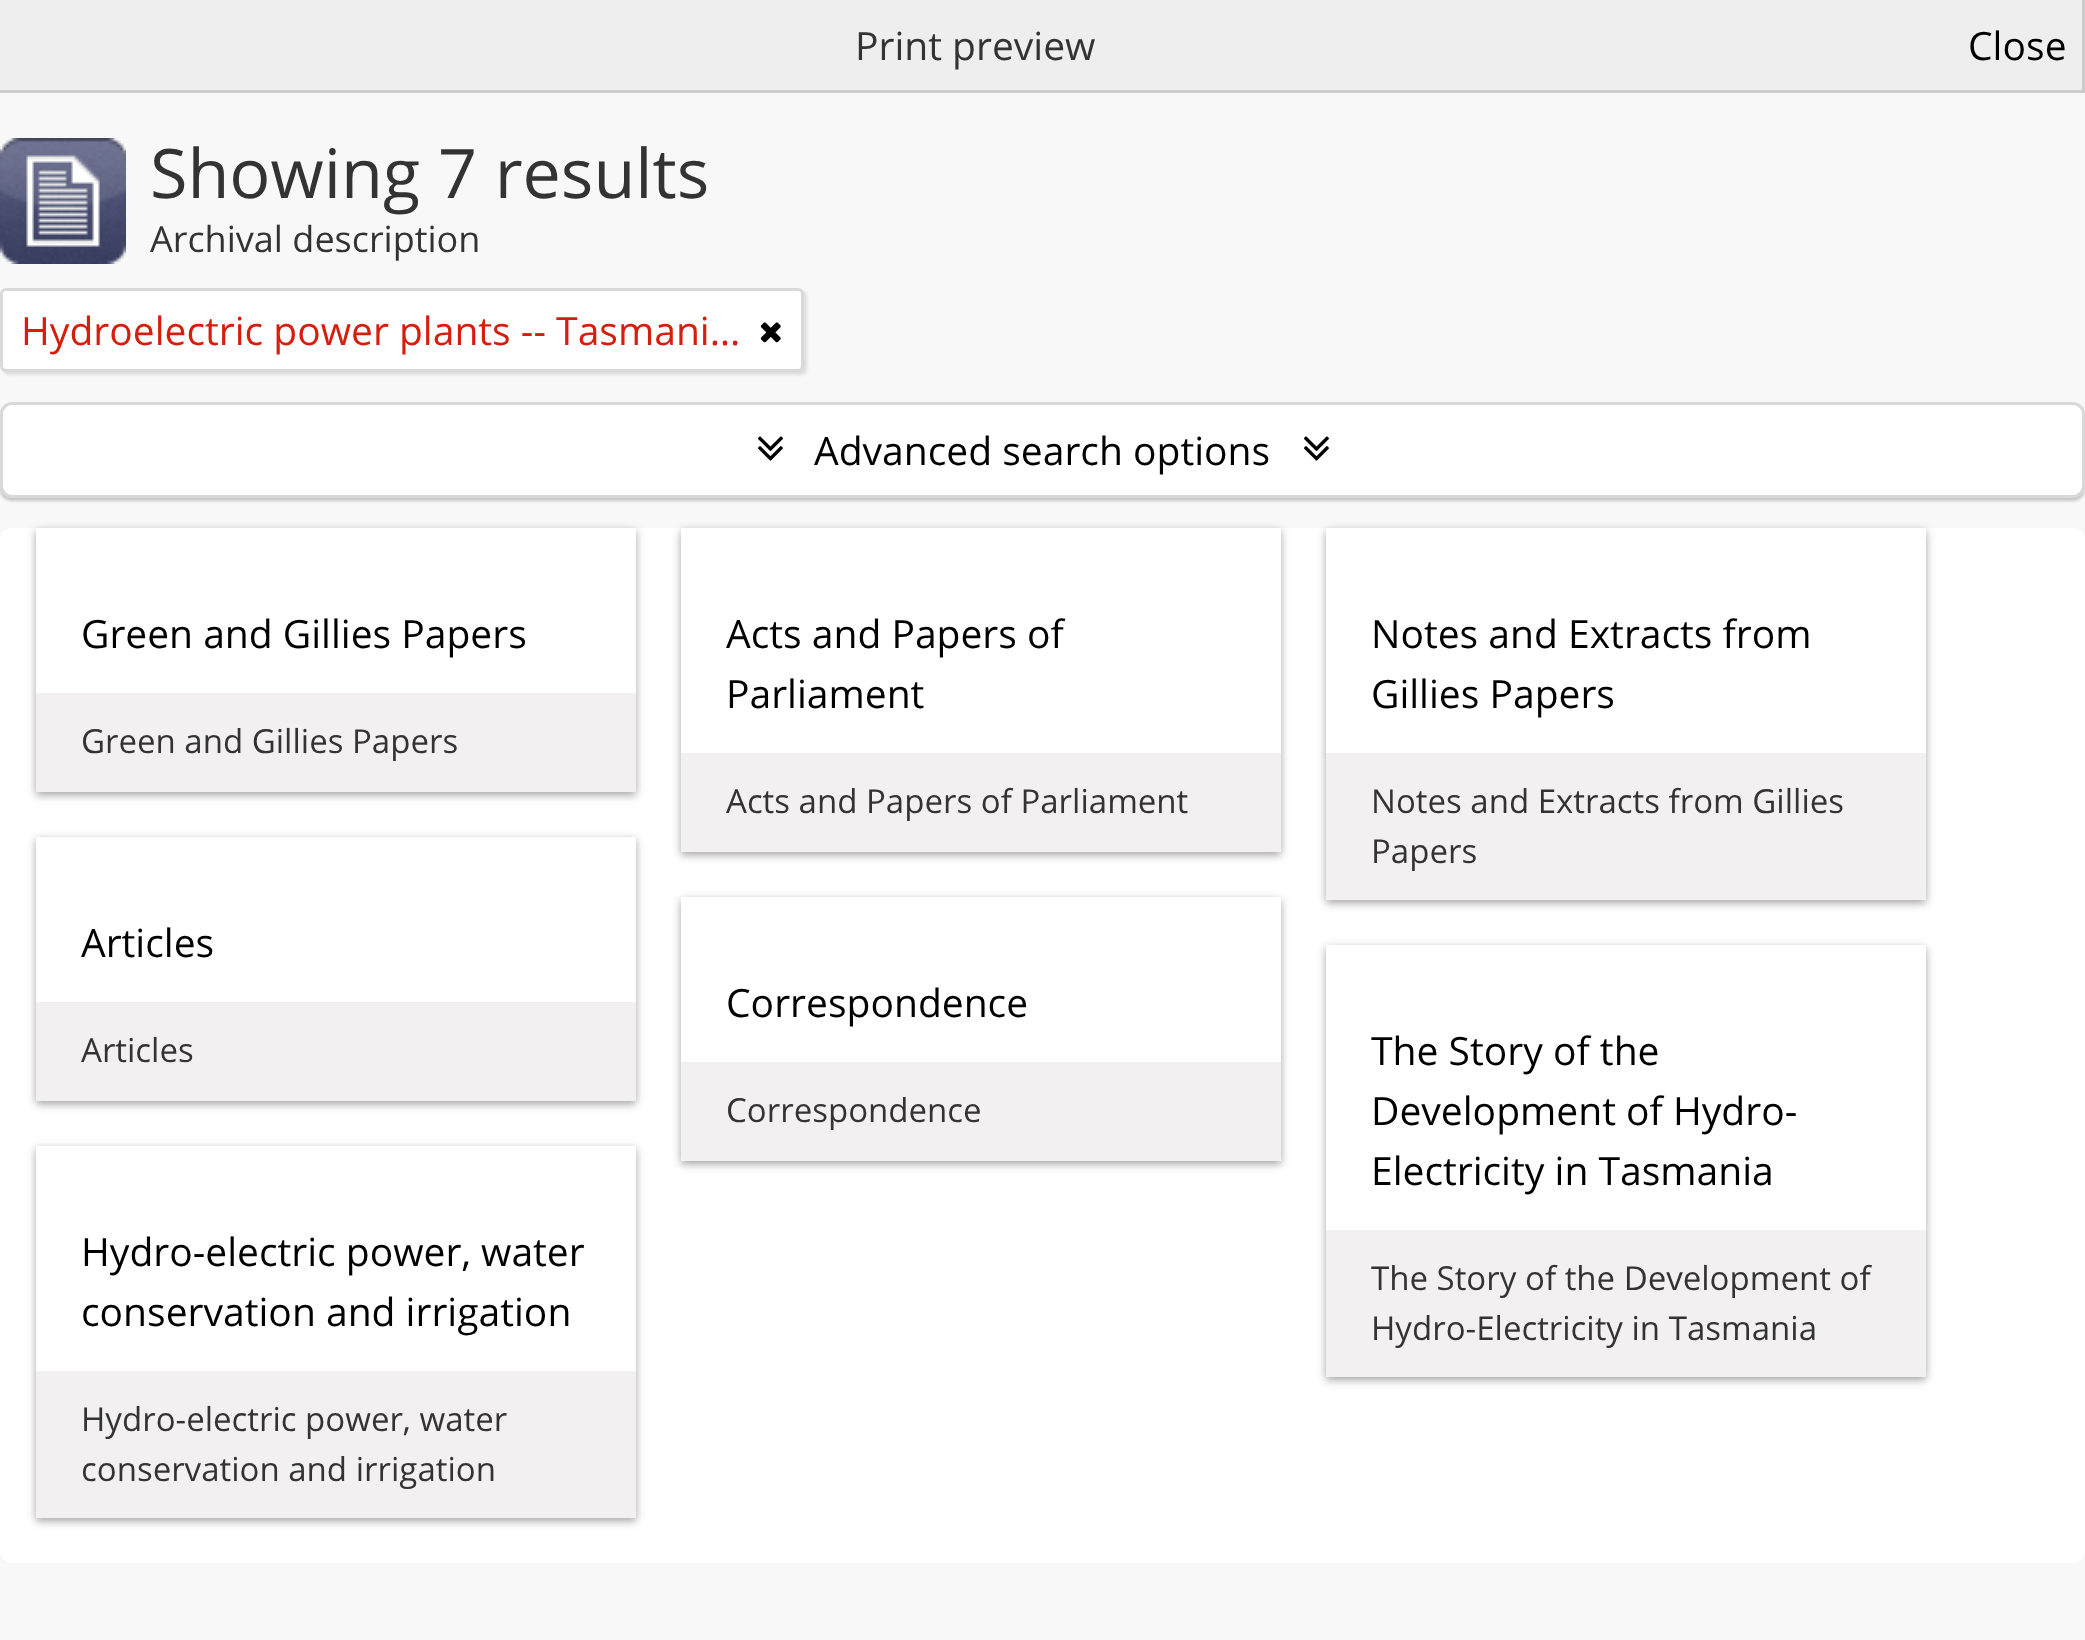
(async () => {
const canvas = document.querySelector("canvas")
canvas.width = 2085
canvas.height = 1640
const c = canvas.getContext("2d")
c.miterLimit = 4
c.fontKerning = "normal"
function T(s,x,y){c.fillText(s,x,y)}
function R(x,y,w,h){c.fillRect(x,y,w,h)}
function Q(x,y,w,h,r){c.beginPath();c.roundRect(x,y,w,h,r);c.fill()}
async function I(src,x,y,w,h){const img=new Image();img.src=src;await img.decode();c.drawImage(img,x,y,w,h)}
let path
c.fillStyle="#f8f8f8"
R(0,0,2085,1640)
c.fillStyle="#eee"
R(0,0,2082,90)
c.fillStyle="#ccc"
R(2082,0,3,93)
R(0,90,2085,3)
c.font="39px Open Sans"
c.fillStyle="#333"
T("Print preview",855,60)
c.fillStyle="#000"
T("Close",1968,60)
await I("1.png",0,138,126,126)
c.font="68.25px Open Sans"
c.fillStyle="#333"
T("Showing 7 results",150,198)
c.font="36px Open Sans"
T("Archival description",150,252)
c.fillStyle="#0000001a"
c.filter="blur(1.5px)"
c.beginPath()
c.roundRect(3,291,804,84,6)
c.fill()
c.filter="none"
c.fillStyle="#fff"
c.beginPath()
c.roundRect(1.5,289.5,801,81,4.5)
c.fill()
c.strokeStyle="#d9d9d9"
c.lineWidth=3
c.stroke()
c.font="39px Open Sans"
c.fillStyle="#d71d0d"
T("Hydroelectric power plants -- Tasmani…",21,345)
await I("2.png",760,322,21,21)
c.fillStyle="#00000033"
c.filter="blur(1.5px)"
c.beginPath()
c.roundRect(0,405,2085,96,12)
c.fill()
c.filter="none"
c.fillStyle="#fff"
c.beginPath()
c.roundRect(1.5,403.5,2082,93,10.5)
c.fill()
c.stroke()
await I("3.png",758,436,25,25)
c.fillStyle="#000"
T("Advanced search options",814,465)
await I("3.png",1304,436,25,25)
c.fillStyle="#fff"
Q(0,528,2085,1035,12)
c.save()
path = new Path2D("M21 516h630v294h-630zm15 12h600v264h-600z")
c.clip(path,"evenodd")
c.fillStyle="#19191966"
c.filter="blur(4.5px)"
c.beginPath()
c.rect(36,531,600,264)
c.fill()
c.filter="none"
c.restore()
c.fillStyle="#000"
T("Green and Gillies Papers",81,648)
c.fillStyle="#f2f0f0"
R(36,693,600,99)
c.font="33px Open Sans"
c.fillStyle="#333"
T("Green and Gillies Papers",81,753)
c.save()
path = new Path2D("M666 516h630v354h-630zm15 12h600v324h-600z")
c.clip(path,"evenodd")
c.fillStyle="#19191966"
c.filter="blur(4.5px)"
c.beginPath()
c.rect(681,531,600,324)
c.fill()
c.filter="none"
c.restore()
c.font="39px Open Sans"
c.fillStyle="#000"
T("Acts and Papers of",726,648)
T("Parliament",726,708)
c.fillStyle="#f2f0f0"
R(681,753,600,99)
c.font="33px Open Sans"
c.fillStyle="#333"
T("Acts and Papers of Parliament",726,813)
c.save()
path = new Path2D("M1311 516h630v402h-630zm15 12h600v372h-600z")
c.clip(path,"evenodd")
c.fillStyle="#19191966"
c.filter="blur(4.5px)"
c.beginPath()
c.rect(1326,531,600,372)
c.fill()
c.filter="none"
c.restore()
c.font="39px Open Sans"
c.fillStyle="#000"
T("Notes and Extracts from",1371,648)
T("Gillies Papers",1371,708)
c.fillStyle="#f2f0f0"
R(1326,753,600,147)
c.font="33px Open Sans"
c.fillStyle="#333"
T("Notes and Extracts from Gillies",1371,813)
T("Papers",1371,863)
c.save()
path = new Path2D("M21 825h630v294h-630zm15 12h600v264h-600z")
c.clip(path,"evenodd")
c.fillStyle="#19191966"
c.filter="blur(4.5px)"
c.beginPath()
c.rect(36,840,600,264)
c.fill()
c.filter="none"
c.restore()
c.font="39px Open Sans"
c.fillStyle="#000"
T("Articles",81,957)
c.fillStyle="#f2f0f0"
R(36,1002,600,99)
c.font="33px Open Sans"
c.fillStyle="#333"
T("Articles",81,1062)
c.save()
path = new Path2D("M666 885h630v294h-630zm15 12h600v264h-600z")
c.clip(path,"evenodd")
c.fillStyle="#19191966"
c.filter="blur(4.5px)"
c.beginPath()
c.rect(681,900,600,264)
c.fill()
c.filter="none"
c.restore()
c.font="39px Open Sans"
c.fillStyle="#000"
T("Correspondence",726,1017)
c.fillStyle="#f2f0f0"
R(681,1062,600,99)
c.font="33px Open Sans"
c.fillStyle="#333"
T("Correspondence",726,1122)
c.save()
path = new Path2D("M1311 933h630v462h-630zm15 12h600v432h-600z")
c.clip(path,"evenodd")
c.fillStyle="#19191966"
c.filter="blur(4.5px)"
c.beginPath()
c.rect(1326,948,600,432)
c.fill()
c.filter="none"
c.restore()
c.font="39px Open Sans"
c.fillStyle="#000"
T("The Story of the",1371,1065)
T("Development of Hydro-",1371,1125)
T("Electricity in Tasmania",1371,1185)
c.fillStyle="#f2f0f0"
R(1326,1230,600,147)
c.font="33px Open Sans"
c.fillStyle="#333"
T("The Story of the Development of",1371,1290)
T("Hydro-Electricity in Tasmania",1371,1340)
c.save()
path = new Path2D("M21 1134h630v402h-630zm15 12h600v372h-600z")
c.clip(path,"evenodd")
c.fillStyle="#19191966"
c.filter="blur(4.5px)"
c.beginPath()
c.rect(36,1149,600,372)
c.fill()
c.filter="none"
c.restore()
c.font="39px Open Sans"
c.fillStyle="#000"
T("Hydro-electric power, water",81,1266)
T("conservation and irrigation",81,1326)
c.fillStyle="#f2f0f0"
R(36,1371,600,147)
c.font="33px Open Sans"
c.fillStyle="#333"
T("Hydro-electric power, water",81,1431)
T("conservation and irrigation",81,1481)
})()
